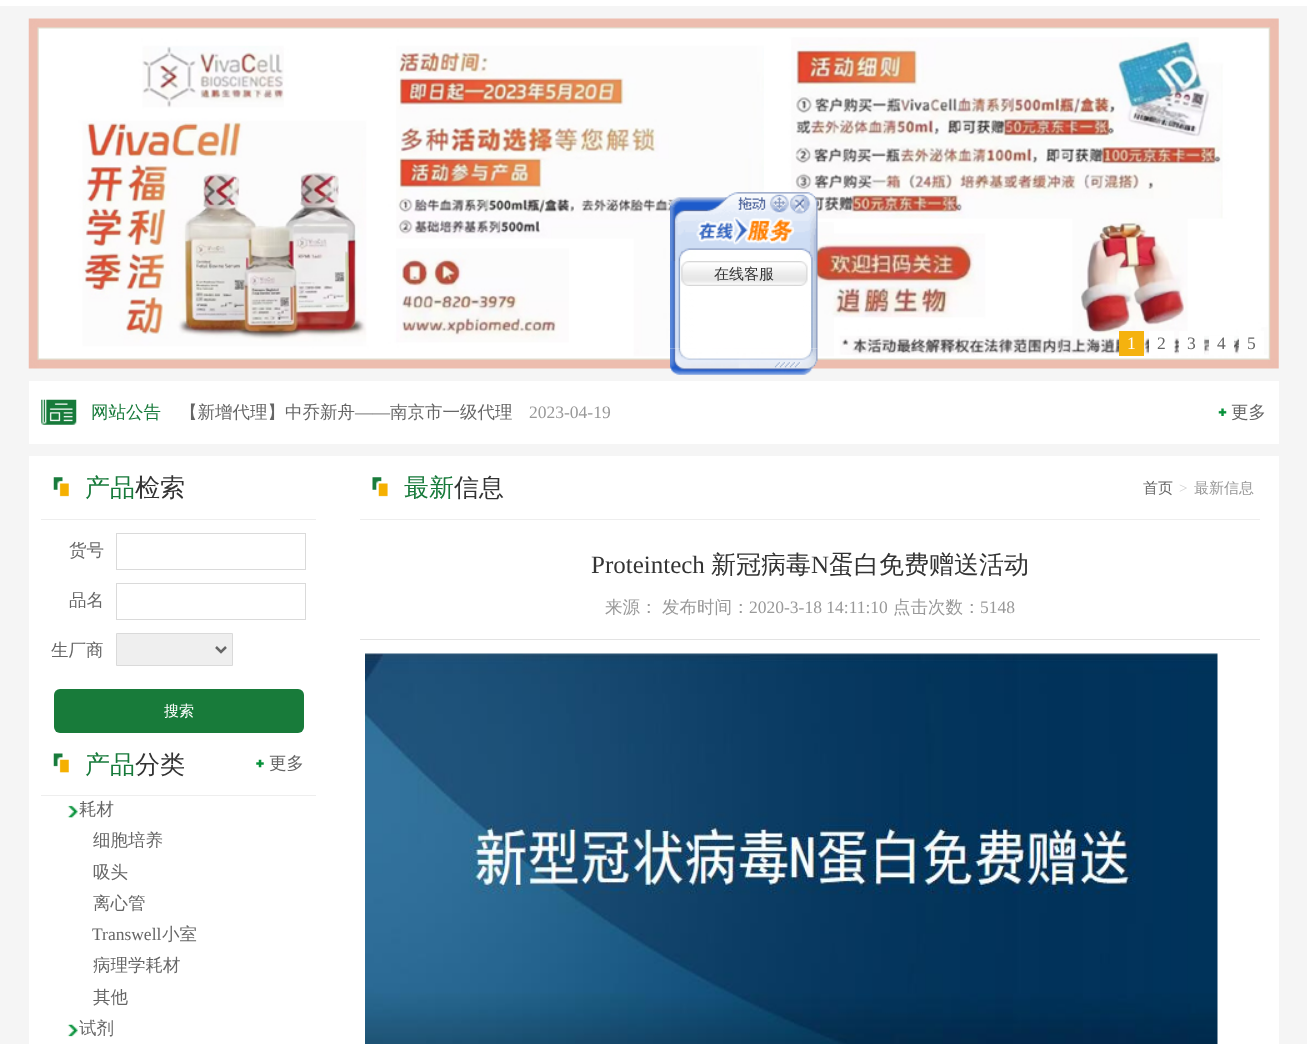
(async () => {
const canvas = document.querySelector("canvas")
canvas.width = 1307
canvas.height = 1044
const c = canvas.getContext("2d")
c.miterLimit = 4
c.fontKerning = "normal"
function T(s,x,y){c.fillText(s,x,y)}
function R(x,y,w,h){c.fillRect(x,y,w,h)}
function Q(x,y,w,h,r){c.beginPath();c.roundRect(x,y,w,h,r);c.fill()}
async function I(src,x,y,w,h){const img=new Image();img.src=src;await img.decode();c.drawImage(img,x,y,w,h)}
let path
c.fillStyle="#f5f5f5"
R(0,0,1307,1044)
c.fillStyle="#fff"
R(0,0,1307,6)
await I("5.png",28,18,1251,351)
await I("1.png",670,192,148,69)
await I("2.png",670,261,148,88)
await I("3.png",681,261,127,25)
c.font="500 15px WenQuanYi Zen Hei"
c.fillStyle="#333"
T("在线客服",714,279)
await I("4.png",670,348,148,27)
c.fillStyle="#f5b20f"
R(1119,331,25,25)
c.font="17.5px Liberation Serif"
c.fillStyle="#fff"
T("1",1127,349)
R(1149,331,25,24)
c.fillStyle="#666"
T("2",1157,349)
c.fillStyle="#fff"
R(1179,331,25,24)
c.fillStyle="#666"
T("3",1187,349)
c.fillStyle="#fff"
R(1209,336,25,19)
c.fillStyle="#666"
T("4",1217,349)
c.fillStyle="#fff"
R(1239,331,25,24)
c.fillStyle="#666"
T("5",1247,349)
c.fillStyle="#fff"
R(29,381,1250,63)
await I("6.png",41,399,36,26)
c.font="500 17.5px WenQuanYi Zen Hei"
c.fillStyle="#177a3a"
T("网站公告",91,418)
c.fillStyle="#666"
T("【新增代理】中乔新舟",180,418)
c.font="17.5px Liberation Serif"
T("——",355,418)
c.font="500 17.5px WenQuanYi Zen Hei"
T("南京市一级代理",390,418)
c.font="17.5px Liberation Serif"
c.fillStyle="#999"
T("2023-04-19",529,418)
await I("7.png",1218,408,9,8)
c.font="500 17.5px WenQuanYi Zen Hei"
c.fillStyle="#666"
T("更多",1231,418)
c.fillStyle="#fff"
R(29,456,1250,588)
c.fillStyle="#eee"
R(41,519,275,1)
await I("8.png",53,477,16,20)
c.font="500 25px WenQuanYi Zen Hei"
c.fillStyle="#177a3a"
T("产品",85,496)
c.fillStyle="#333"
T("检索",135,496)
c.font="500 17.5px WenQuanYi Zen Hei"
c.fillStyle="#666"
T("货号",69,556)
c.strokeStyle="#dadada"
c.strokeRect(116.5,533.5,189,36)
T("品名",69,606)
c.strokeRect(116.5,583.5,189,36)
T("生厂商",51,656)
c.fillStyle="#efefef"
c.beginPath()
c.rect(116.5,633.5,116,32)
c.fill()
c.stroke()
path = new Path2D("M216 647l5 5l5-5")
c.strokeStyle="#666"
c.lineWidth=2.5
c.stroke(path)
c.fillStyle="#187b3a"
Q(54,689,250,44,6)
c.font="500 15px WenQuanYi Zen Hei"
c.fillStyle="#fff"
T("搜索",164,716)
c.fillStyle="#eee"
R(41,795,275,1)
await I("9.png",53,753,16,20)
c.font="500 25px WenQuanYi Zen Hei"
c.fillStyle="#177a3a"
T("产品",85,773)
c.fillStyle="#333"
T("分类",135,773)
await I("10.png",256,759,8,9)
c.font="500 17.5px WenQuanYi Zen Hei"
c.fillStyle="#666"
T("更多",269,769)
await I("11.png",67,805,11,13)
T("耗材",79,815)
T("细胞培养",93,846)
T("吸头",93,878)
T("离心管",93,909)
c.font="17.5px Liberation Serif"
T("Transwell",92,940)
c.font="500 17.5px WenQuanYi Zen Hei"
T("小室",162,940)
T("病理学耗材",93,971)
T("其他",93,1003)
await I("12.png",67,1024,11,13)
T("试剂",79,1034)
c.fillStyle="#eee"
R(360,519,900,1)
await I("13.png",372,477,16,20)
c.font="500 25px WenQuanYi Zen Hei"
c.fillStyle="#177a3a"
T("最新",404,496)
c.fillStyle="#333"
T("信息",454,496)
c.font="500 15px WenQuanYi Zen Hei"
c.fillStyle="#666"
T("首页",1143,493)
c.font="15px Liberation Serif"
c.fillStyle="#d2d2d2"
T(">",1179,493)
c.font="500 15px WenQuanYi Zen Hei"
c.fillStyle="#999"
T("最新信息",1194,493)
c.fillStyle="#e3e3e3"
R(360,639,900,1)
c.font="25px Liberation Serif"
c.fillStyle="#333"
T("Proteintech",591,573)
c.font="500 25px WenQuanYi Zen Hei"
T("新冠病毒",711,573)
c.font="25px Liberation Serif"
T("N",811,573)
c.font="500 25px WenQuanYi Zen Hei"
T("蛋白免费赠送活动",829,573)
c.font="500 17.5px WenQuanYi Zen Hei"
c.fillStyle="#999"
T("来源：",605,613)
T("发布时间：",662,613)
c.font="17.5px Liberation Serif"
T("2020-3-18 14:11:10",749,613)
c.font="500 17.5px WenQuanYi Zen Hei"
T("点击次数：",893,613)
c.font="17.5px Liberation Serif"
T("5148",980,613)
await I("14.png",365,653,853,391)
})()
